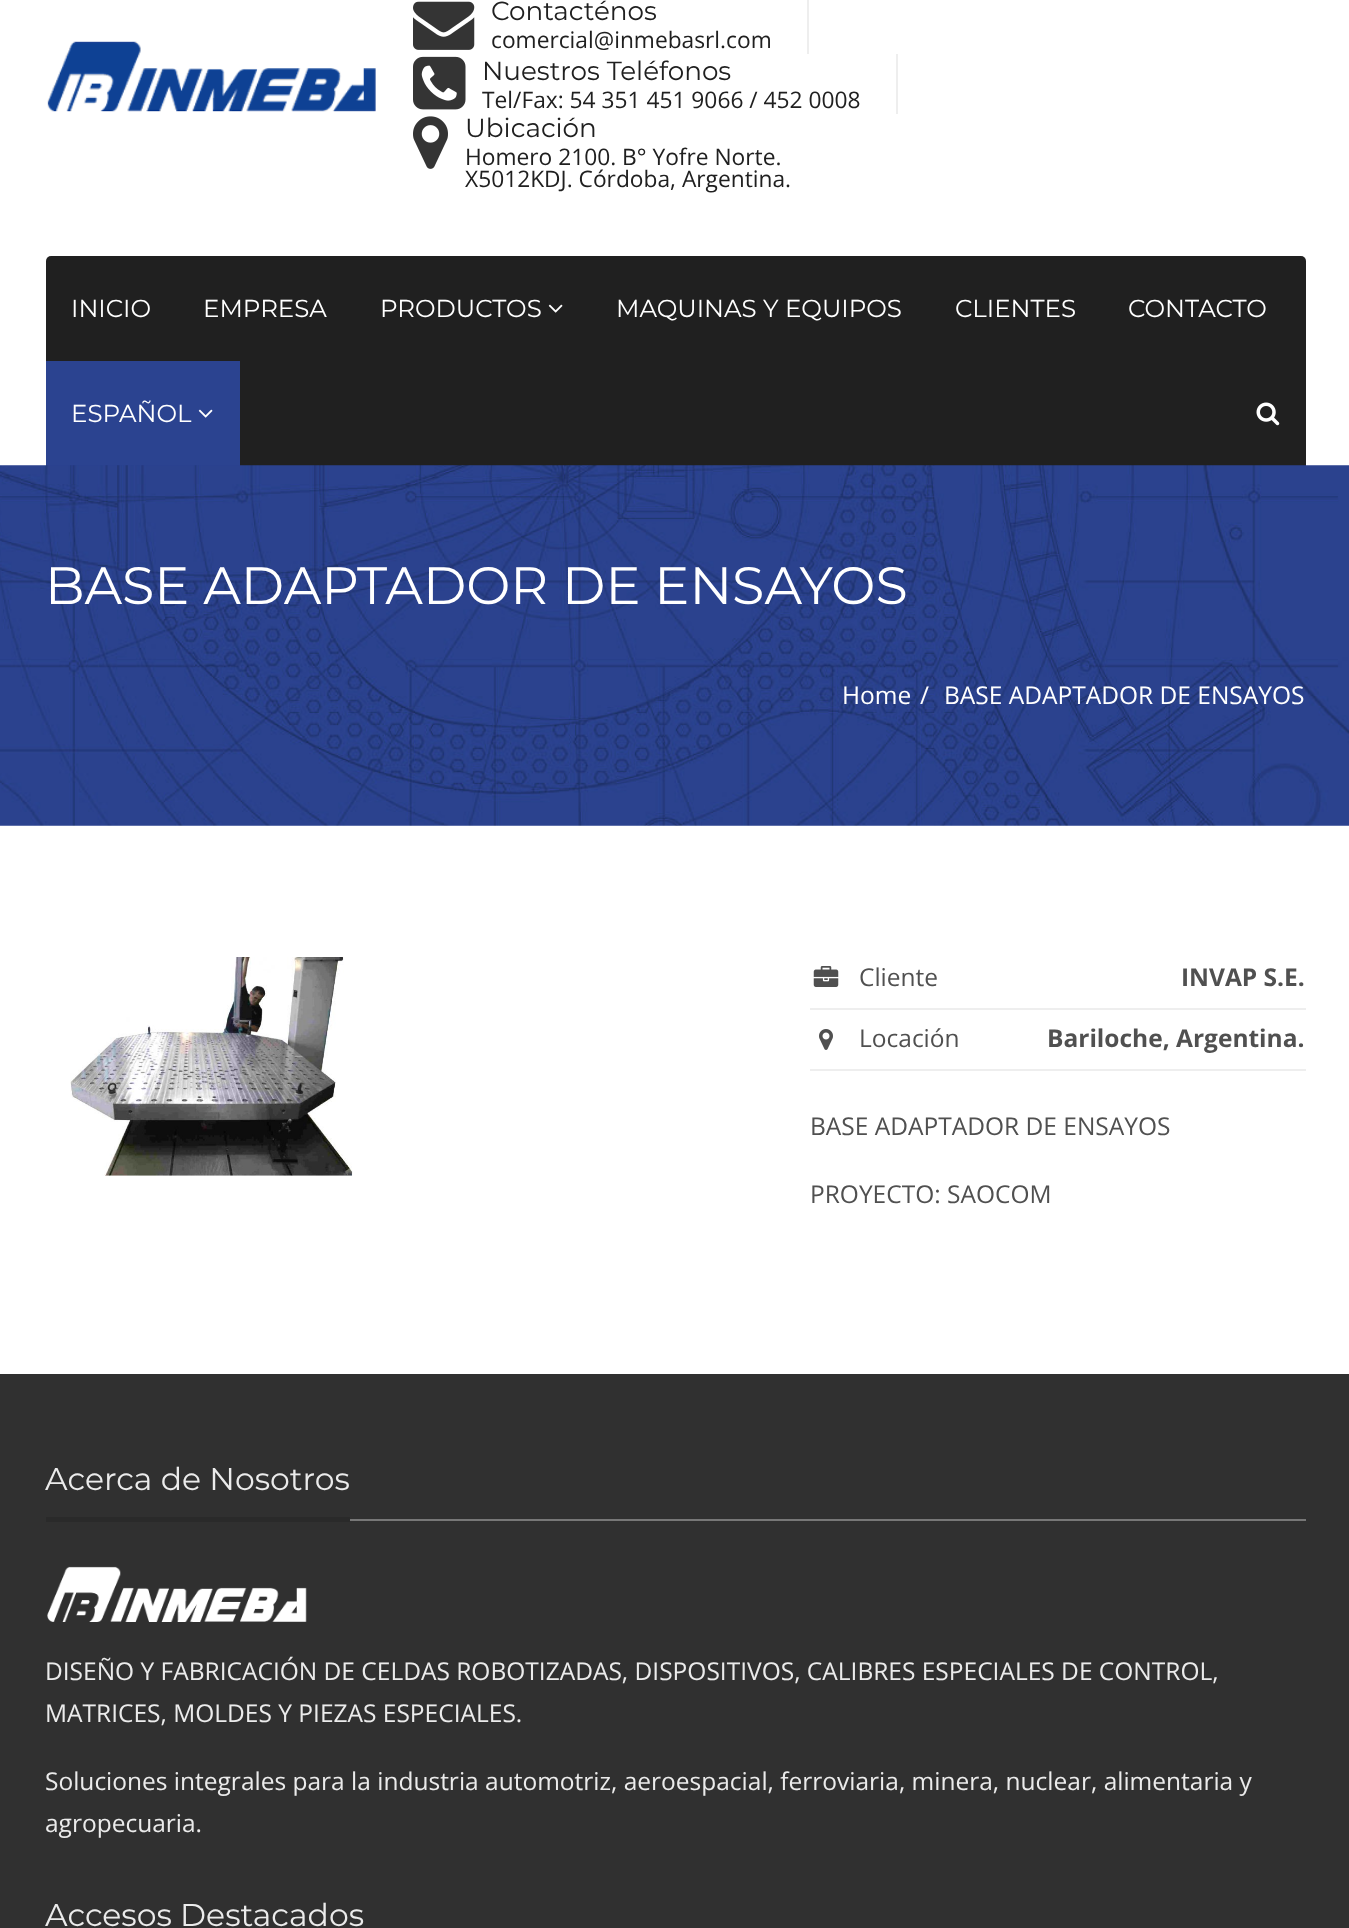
(async () => {
const canvas = document.querySelector("canvas")
canvas.width = 1349
canvas.height = 1928
const c = canvas.getContext("2d")
c.miterLimit = 4
c.fontKerning = "normal"
function T(s,x,y){c.fillText(s,x,y)}
function R(x,y,w,h){c.fillRect(x,y,w,h)}
async function I(src,x,y,w,h){const img=new Image();img.src=src;await img.decode();c.drawImage(img,x,y,w,h)}
c.fillStyle="#fff"
R(0,0,1349,1928)
await I("1.png",47,41,329,71)
c.fillStyle="#eee"
R(807,0,2,54)
await I("2.png",413,1,62,49)
c.font="26.25px Montserrat"
c.fillStyle="#202020"
T("Contacténos",491,20)
c.font="22.75px Open Sans"
T("comercial@inmebasrl.com",491,48)
c.fillStyle="#eee"
R(896,54,2,60)
await I("3.png",413,56,53,54)
c.font="26.25px Montserrat"
c.fillStyle="#202020"
T("Nuestros Teléfonos",482,80)
c.font="22.75px Open Sans"
T("Tel/Fax: 54 351 451 9066 / 452 0008",482,108)
await I("4.png",413,116,35,53)
c.font="26.25px Montserrat"
T("Ubicación",465,137)
c.font="22.75px Open Sans"
T("Homero 2100. B° Yofre Norte.",465,165)
T("X5012KDJ. Córdoba, Argentina.",465,187)
c.beginPath()
c.roundRect(46,256,1260,210,[5,5,0,0])
c.fill()
c.font="24.5px Montserrat"
c.fillStyle="#fff"
T("INICIO",71,317)
T("EMPRESA",203,317)
T("PRODUCTOS",380,317)
await I("5.png",548,304,15,9)
T("MAQUINAS Y EQUIPOS",616,317)
T("CLIENTES",955,317)
T("CONTACTO",1128,317)
c.fillStyle="#2b4390"
R(46,361,194,105)
c.fillStyle="#fff"
T("ESPAÑOL",71,422)
await I("6.png",198,409,15,9)
await I("7.png",1256,402,24,24)
await I("8.png",0,465,1349,361)
c.font="52.5px Montserrat"
T("BASE ADAPTADOR DE ENSAYOS",45,604)
c.font="24.5px Open Sans"
T("Home",842,704)
T("/",920,704)
T("BASE ADAPTADOR DE ENSAYOS",944,704)
await I("9.png",70,957,283,219)
c.fillStyle="#eee"
R(810,1008,496,2)
await I("10.png",813,966,26,21)
c.fillStyle="#505050"
T("Cliente",859,986)
c.font="bold 24.5px Open Sans"
T("INVAP S.E.",1181,986)
c.fillStyle="#eee"
R(810,1069,496,2)
await I("11.png",819,1029,14,21)
c.font="24.5px Open Sans"
c.fillStyle="#505050"
T("Locación",859,1047)
c.font="bold 24.5px Open Sans"
T("Bariloche, Argentina.",1047,1047)
c.font="24.5px Open Sans"
T("BASE ADAPTADOR DE ENSAYOS",810,1135)
T("PROYECTO: SAOCOM",810,1203)
c.fillStyle="#303030"
R(0,1374,1349,554)
c.fillStyle="#777"
R(350,1519,956,2)
c.fillStyle="#2a2a2a"
R(46,1517,304,5)
c.font="31.5px Montserrat"
c.fillStyle="#ebebeb"
T("Acerca de Nosotros",45,1490)
await I("12.png",47,1566,260,56)
c.font="24.5px Open Sans"
T("DISEÑO Y FABRICACIÓN DE CELDAS ROBOTIZADAS, DISPOSITIVOS, CALIBRES ESPECIALES DE CONTROL,",45,1680)
T("MATRICES, MOLDES Y PIEZAS ESPECIALES.",45,1722)
T("Soluciones integrales para la industria automotriz, aeroespacial, ferroviaria, minera, nuclear, alimentaria y",45,1790)
T("agropecuaria.",45,1832)
c.font="31.5px Montserrat"
T("Accesos Destacados",45,1926)
})()
